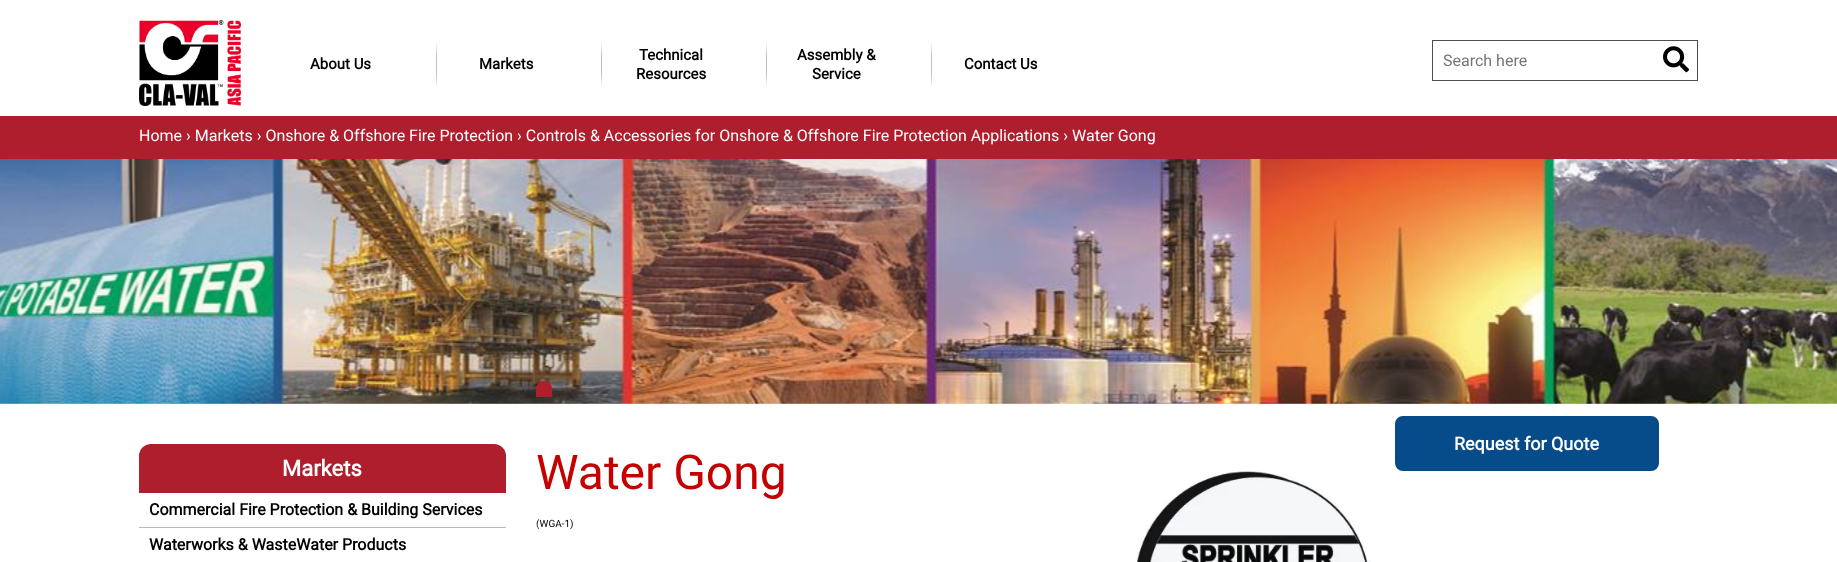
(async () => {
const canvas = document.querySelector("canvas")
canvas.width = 1837
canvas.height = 562
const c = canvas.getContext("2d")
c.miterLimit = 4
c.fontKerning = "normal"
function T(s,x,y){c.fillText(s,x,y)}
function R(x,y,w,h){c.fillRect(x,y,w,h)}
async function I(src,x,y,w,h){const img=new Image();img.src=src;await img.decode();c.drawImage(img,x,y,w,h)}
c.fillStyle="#fff"
R(0,0,1837,562)
await I("1.png",139,20,102,86)
c.font="bold 15px Roboto"
c.fillStyle="#000"
T("About Us",310,69)
await I("2.png",436,43,1,45)
T("Markets",479,69)
await I("2.png",601,43,1,45)
T("Technical",639,60)
T("Resources",636,79)
await I("2.png",766,43,1,45)
T("Assembly &",797,60)
T("Service",812,79)
await I("2.png",931,43,1,45)
T("Contact Us",964,69)
c.strokeStyle="#4d4d4d"
c.strokeRect(1432.5,40.5,265,40)
c.font="16px Roboto"
c.fillStyle="#757575"
T("Search here",1443,66)
await I("3.png",1663,46,26,27)
c.fillStyle="#af1e2d"
R(0,116,1837,43)
await I("4.png",0,159,1837,245)
c.fillStyle="#fff"
T("Home › Markets › Onshore & Offshore Fire Protection › Controls & Accessories for Onshore & Offshore Fire Protection Applications › Water Gong",139,141)
c.fillStyle="#af1e2d"
c.beginPath()
c.roundRect(536,381,16,16,[8,8,0,0])
c.fill()
c.beginPath()
c.roundRect(139,444,367,49,[12,12,0,0])
c.fill()
c.font="bold 22px Roboto"
c.fillStyle="#fff"
T("Markets",282,476)
c.fillStyle="#bbb"
R(139,527,367,1)
c.font="bold 16px Roboto"
c.fillStyle="#000"
T("Commercial Fire Protection & Building Services",149,515)
T("Waterworks & WasteWater Products",149,550)
c.fillStyle="#064b8a"
c.beginPath()
c.roundRect(1396,417,262,53,7)
c.fill()
c.strokeStyle="#064b86"
c.lineWidth=2
c.stroke()
c.font="bold 18px Roboto"
c.fillStyle="#fff"
T("Request for Quote",1454,450)
c.font="48px Roboto"
c.fillStyle="#c40000"
T("Water Gong",536,489)
c.font="10px Roboto"
c.fillStyle="#000"
T("(WGA-1)",536,527)
await I("5.png",1136,470,235,92)
})()
